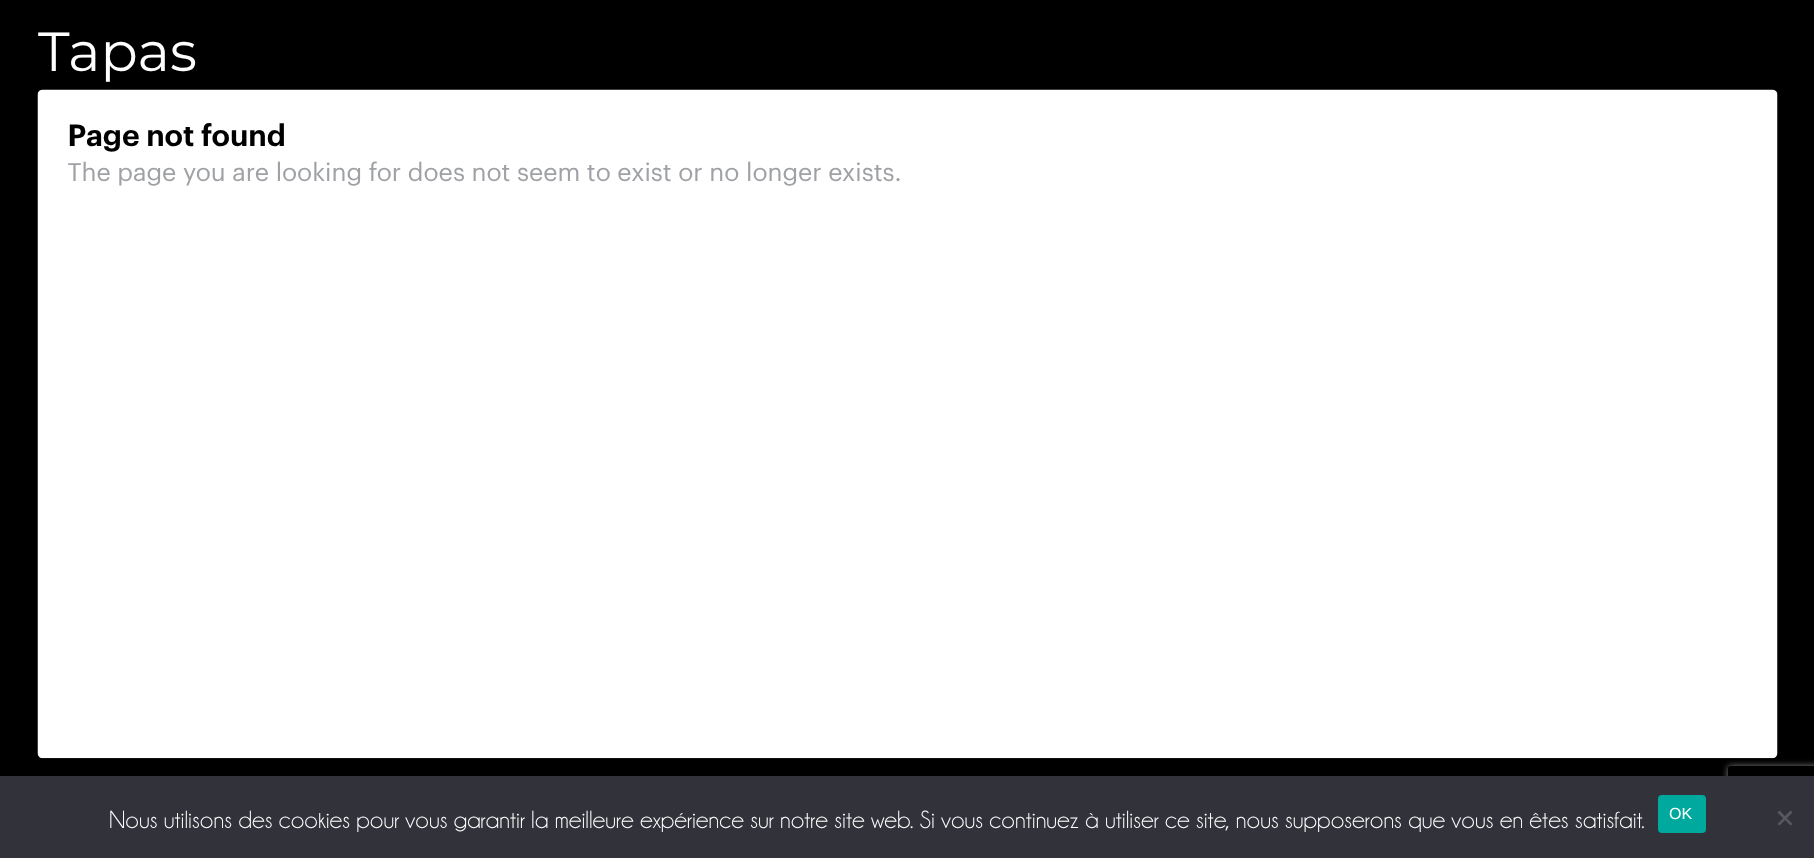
(async () => {
const canvas = document.querySelector("canvas")
canvas.width = 1814
canvas.height = 858
const c = canvas.getContext("2d")
c.miterLimit = 4
c.fontKerning = "normal"
function T(s,x,y){c.fillText(s,x,y)}
function R(x,y,w,h){c.fillRect(x,y,w,h)}
function Q(x,y,w,h,r){c.beginPath();c.roundRect(x,y,w,h,r);c.fill()}
async function I(src,x,y,w,h){const img=new Image();img.src=src;await img.decode();c.drawImage(img,x,y,w,h)}
let path
c.fillStyle="#000"
R(0,0,1814,858)
c.font="55px Montserrat"
c.fillStyle="#fff"
T("Tapas",38,71)
await I("1.png",37,89,1741,670)
c.save()
path = new Path2D("M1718 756h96v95h-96zm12.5 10h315c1.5 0 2.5 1 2.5 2.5v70c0 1.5-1 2.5-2.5 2.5h-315c-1.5 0-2.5-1-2.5-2.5v-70c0-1.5 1-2.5 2.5-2.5z")
c.clip(path,"evenodd")
c.fillStyle="#808080"
c.filter="blur(3px)"
c.beginPath()
c.roundRect(1728,766,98,75,2.5)
c.fill()
c.filter="none"
c.restore()
c.fillStyle="#32323a"
R(0,776,1814,82)
c.font="25px 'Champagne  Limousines'"
c.fillStyle="#fff"
T("Nous utilisons des cookies pour vous garantir la meilleure expérience sur notre site web. Si vous continuez à utiliser ce site, nous supposerons que vous en êtes satisfait.",109,828)
c.fillStyle="#00a99d"
Q(1658,795,48,38,4)
c.font="16px Liberation Sans"
c.fillStyle="#fff"
T("OK",1669,819)
c.fillStyle="#59595d"
path = new Path2D("M1790.5 810.5l2 2l-13 13l-2-1.5z")
c.fill(path)
path = new Path2D("M1777.5 812.5l2-2l13 13.5l-2 1.5z")
c.fill(path)
})()
